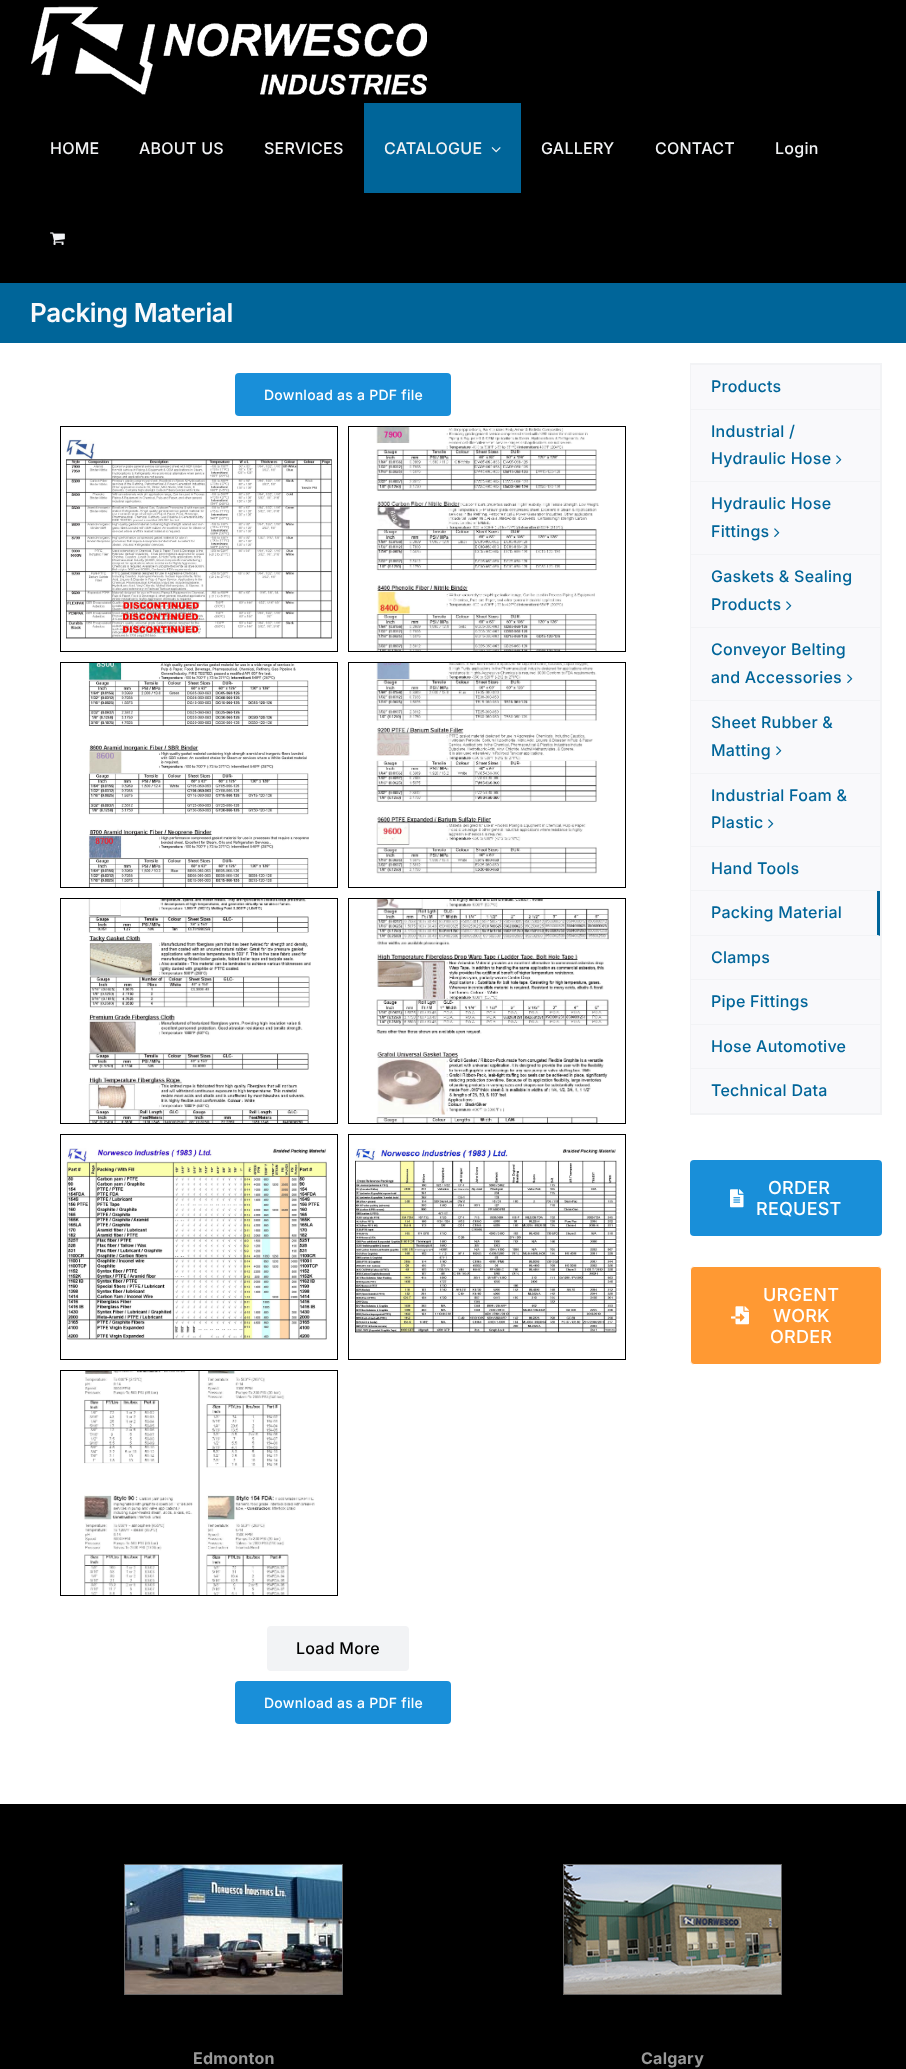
(async () => {
const canvas = document.querySelector("canvas")
canvas.width = 906
canvas.height = 2069
const c = canvas.getContext("2d")
c.miterLimit = 4
c.fontKerning = "normal"
function T(s,x,y){c.fillText(s,x,y)}
function R(x,y,w,h){c.fillRect(x,y,w,h)}
function Q(x,y,w,h,r){c.beginPath();c.roundRect(x,y,w,h,r);c.fill()}
async function I(src,x,y,w,h){const img=new Image();img.src=src;await img.decode();c.drawImage(img,x,y,w,h)}
let path
c.fillStyle="#fff"
R(0,0,906,2069)
c.fillStyle="#000"
R(0,0,906,283)
await I("1.png",31,6,396,90)
c.letterSpacing="0.25px"
c.font="500 16px Inter"
c.fillStyle="#f2f3f5"
T("HOME",50,154)
T("ABOUT US",139,154)
T("SERVICES",264,154)
c.fillStyle="#006599"
R(364,103,157,90)
c.fillStyle="#f2f3f5"
T("CATALOGUE",384,154)
await I("2.png",491,147,10,6)
T("GALLERY",541,154)
T("CONTACT",655,154)
T("Login",775,154)
await I("3.png",50,232,15,13)
c.fillStyle="#006599"
R(0,283,906,60)
c.letterSpacing="-0.4px"
c.font="600 26px Inter"
c.fillStyle="#f9f9fb"
T("Packing Material",30,322)
c.fillStyle="#198fd9"
Q(235,373,216,43,4)
c.letterSpacing="0.25px"
c.font="500 14px Inter"
c.fillStyle="#fff"
T("Download as a PDF file",264,400)
c.strokeStyle="#000"
c.strokeRect(60.5,426.5,277,225)
await I("4.png",65,439,267,200)
c.strokeRect(348.5,426.5,277,225)
await I("5.png",376,427,223,224)
c.strokeRect(60.5,662.5,277,225)
await I("6.png",88,663,221,224)
c.strokeRect(348.5,662.5,277,225)
await I("7.png",376,663,221,211)
c.strokeRect(60.5,898.5,277,225)
await I("8.png",88,899,223,224)
c.strokeRect(348.5,898.5,277,225)
await I("9.png",376,899,233,224)
c.strokeRect(60.5,1134.5,277,225)
await I("10.png",66,1148,261,192)
c.strokeRect(348.5,1134.5,277,225)
await I("11.png",355,1148,262,185)
c.strokeRect(60.5,1370.5,277,225)
await I("12.png",84,1371,231,224)
c.fillStyle="#f2f3f5"
Q(267,1626,142,45,4)
c.font="500 16px Inter"
c.fillStyle="#000"
T("Load More",296,1654)
c.fillStyle="#198fd9"
Q(235,1681,216,43,4)
c.font="500 14px Inter"
c.fillStyle="#fff"
T("Download as a PDF file",264,1708)
c.fillStyle="#f9f9fb"
R(691,365,189,748)
c.strokeStyle="#f2f3f5"
c.strokeRect(690.5,363.5,191,751)
c.fillStyle="#f2f3f5"
R(691,364,190,1)
R(880,364,1,750)
R(691,409,189,1)
c.font="500 16px Inter"
c.fillStyle="#006599"
T("Products",711,392)
c.fillStyle="#f2f3f5"
R(691,481,189,1)
c.fillStyle="#006599"
T("Industrial /",711,437)
T("Hydraulic Hose",711,464)
await I("13.png",836,455,6,10)
c.fillStyle="#f2f3f5"
R(691,554,189,1)
c.fillStyle="#006599"
T("Hydraulic Hose",711,509)
T("Fittings",711,537)
await I("13.png",774,528,6,10)
c.fillStyle="#f2f3f5"
R(691,627,189,1)
c.fillStyle="#006599"
T("Gaskets & Sealing",711,582)
T("Products",711,610)
await I("13.png",786,601,6,10)
c.fillStyle="#f2f3f5"
R(691,700,189,1)
c.fillStyle="#006599"
T("Conveyor Belting",711,655)
T("and Accessories",711,683)
await I("13.png",847,674,6,10)
c.fillStyle="#f2f3f5"
R(691,773,189,1)
c.fillStyle="#006599"
T("Sheet Rubber &",711,728)
T("Matting",711,756)
await I("13.png",776,746,6,10)
c.fillStyle="#f2f3f5"
R(691,846,189,1)
c.fillStyle="#006599"
T("Industrial Foam &",711,801)
T("Plastic",711,828)
await I("13.png",768,819,6,10)
c.fillStyle="#f2f3f5"
R(691,890,189,1)
c.fillStyle="#006599"
T("Hand Tools",711,874)
path = new Path2D("M880 891v45l-3-1v-44z")
c.fill(path)
c.fillStyle="#f2f3f5"
path = new Path2D("M880 936h-189v-1h186z")
c.fill(path)
c.fillStyle="#006599"
T("Packing Material",711,918)
c.fillStyle="#f2f3f5"
R(691,979,189,1)
c.fillStyle="#006599"
T("Clamps",711,963)
c.fillStyle="#f2f3f5"
R(691,1024,189,1)
c.fillStyle="#006599"
T("Pipe Fittings",711,1007)
c.fillStyle="#f2f3f5"
R(691,1068,189,1)
c.fillStyle="#006599"
T("Hose Automotive",711,1052)
c.fillStyle="#f2f3f5"
R(691,1113,189,1)
c.fillStyle="#006599"
T("Technical Data",711,1096)
c.fillStyle="#198fd9"
Q(690,1160,192,76,4)
await I("14.png",730,1189,14,19)
c.font="500 18px Inter"
c.fillStyle="#fff"
T("ORDER",768,1194)
T("REQUEST",756,1215)
c.fillStyle="#f93"
c.beginPath()
c.roundRect(690.5,1266.5,191,98,3.5)
c.fill()
c.strokeStyle="#fff"
c.stroke()
await I("15.png",731,1306,18,19)
c.fillStyle="#fff"
T("URGENT",763,1301)
T("WORK",773,1322)
T("ORDER",770,1343)
c.fillStyle="#000"
R(0,1804,906,265)
await I("16.png",124,1864,219,131)
c.font="bold 16px Inter"
c.fillStyle="#999"
T("Edmonton",193,2064)
await I("17.png",563,1864,219,131)
T("Calgary",641,2064)
})()
